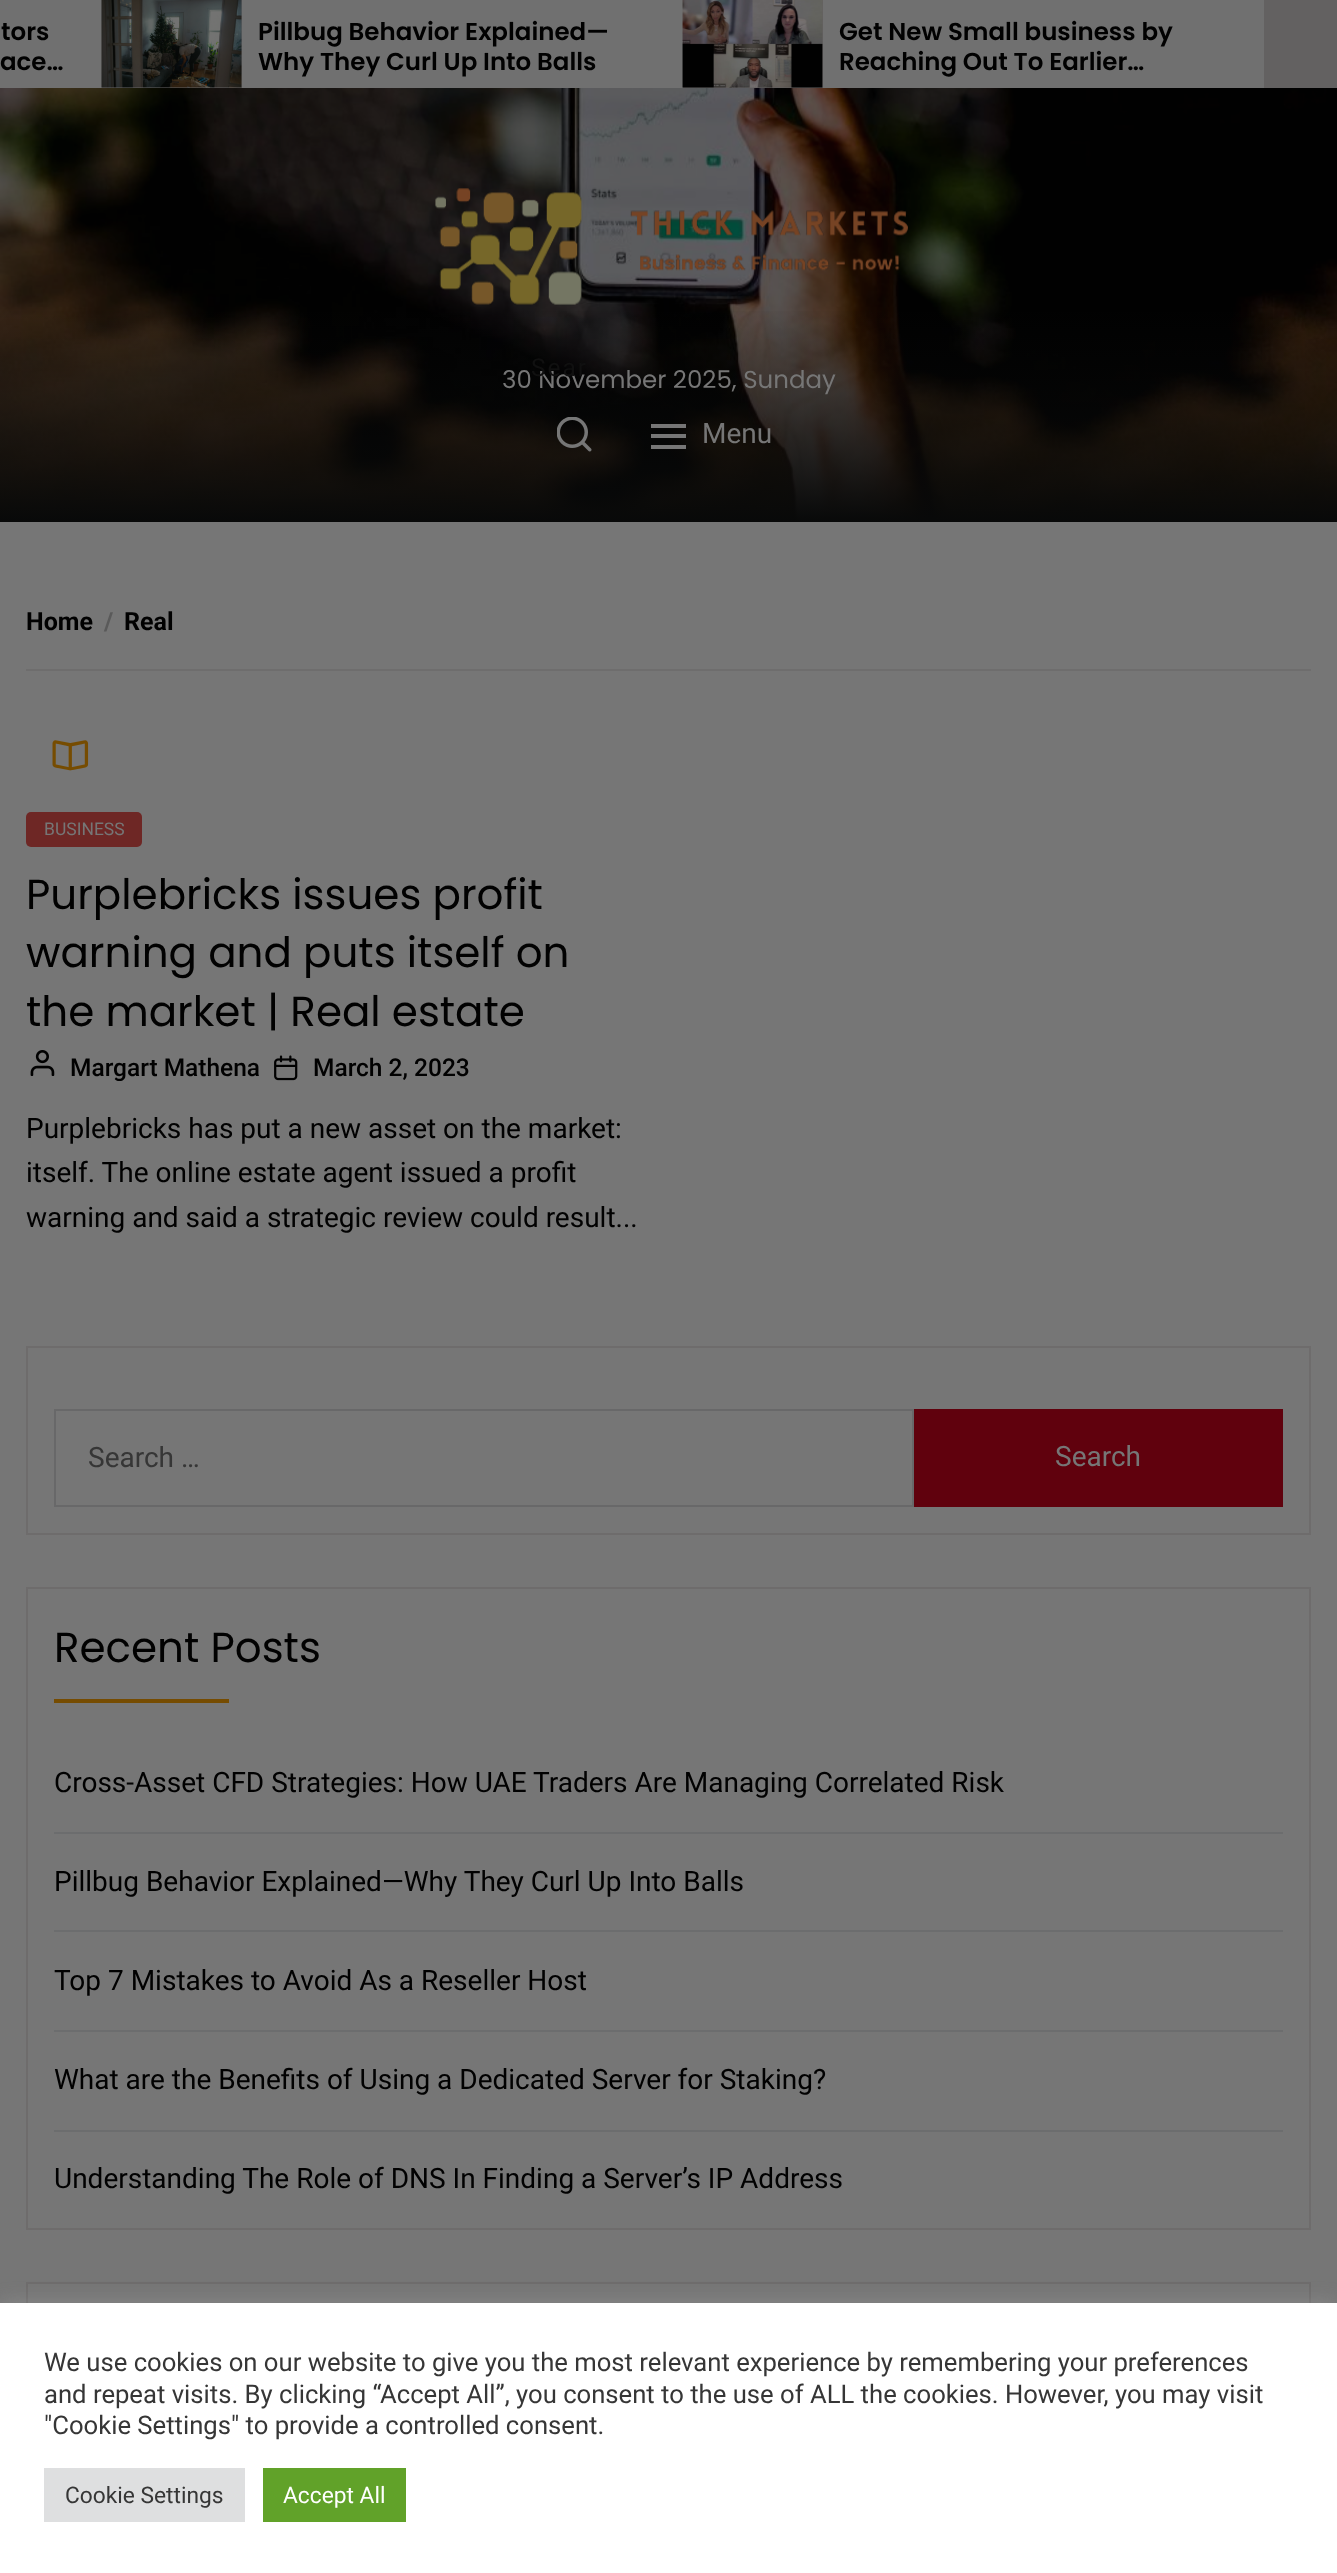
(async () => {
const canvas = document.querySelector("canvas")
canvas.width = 1337
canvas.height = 2573
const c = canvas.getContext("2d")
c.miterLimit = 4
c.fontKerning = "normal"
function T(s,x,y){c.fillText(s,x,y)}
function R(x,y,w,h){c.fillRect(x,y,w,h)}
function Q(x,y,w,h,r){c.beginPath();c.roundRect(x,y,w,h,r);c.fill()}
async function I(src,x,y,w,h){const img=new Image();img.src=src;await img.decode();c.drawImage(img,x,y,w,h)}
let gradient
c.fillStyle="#767676"
R(0,0,1337,2573)
c.fillStyle="#707070"
R(0,0,1264,88)
c.font="600 24.5px Poppins"
c.fillStyle="#010101"
T("tors",1,40)
T("ace…",0,70)
c.fillStyle="#636161"
R(102,0,140,88)
await I("1.png",101,0,141,88)
c.fillStyle="#010101"
T("Pillbug Behavior Explained—",258,40)
T("Why They Curl Up Into Balls",258,70)
c.fillStyle="#636161"
R(683,0,140,88)
await I("2.png",682,0,141,88)
c.fillStyle="#010101"
T("Get New Small business by",839,40)
T("Reaching Out To Earlier…",839,70)
c.fillStyle="#636161"
R(1264,0,73,88)
R(0,520,1337,1)
await I("3.png",0,88,1337,433)
gradient = c.createLinearGradient(669,522,669,88)
gradient.addColorStop(0,"#080909")
gradient.addColorStop(.5,"#08090900")
c.fillStyle = gradient
R(0,311,1337,211)
c.font="24.5px Poppins"
c.fillStyle="#767676"
T("30 November 2025, Sunday",502,388)
c.letterSpacing="2px"
c.font="24.5px Roboto"
c.fillStyle="#101010"
T("Sear",531,376)
await I("4.png",557,417,35,35)
c.fillStyle="#767676"
R(651,424,35,4)
R(651,434,35,4)
R(651,445,35,4)
c.letterSpacing="0px"
c.font="28px Roboto"
T("Menu",702,443)
await I("5.png",435,188,473,118)
c.fillStyle="#6e6d6d"
R(26,669,1285,2)
c.font="bold 25px Roboto"
c.fillStyle="#010101"
T("Home",26,630)
c.fillStyle="#5a5a5a"
T("/",104,630)
c.fillStyle="#010101"
T("Real",124,630)
await I("6.png",52,740,37,31)
c.fillStyle="#6e2725"
Q(26,812,116,35,5)
c.font="17.5px Roboto"
c.fillStyle="#767676"
T("BUSINESS",44,835)
c.font="42px Poppins"
c.fillStyle="#010101"
T("Purplebricks issues profit",26,909)
T("warning and puts itself on",26,967)
T("the market | Real estate",26,1026)
await I("7.png",30,1050,25,26)
c.font="500 24.5px Roboto"
T("Margart Mathena",70,1076)
await I("8.png",274,1055,24,26)
T("March 2, 2023",313,1076)
c.font="28px Roboto"
T("Purplebricks has put a new asset on the market:",26,1138)
T("itself. The online estate agent issued a profit",26,1182)
T("warning and said a strategic review could result...",26,1227)
c.strokeStyle="#6e6c6c"
c.lineWidth=2
c.strokeRect(27,1347,1283,187)
c.strokeStyle="#686869"
c.strokeRect(55,1410,858,96)
c.fillStyle="#363636"
T("Search …",88,1467)
c.fillStyle="#60010d"
R(914,1409,369,98)
c.fillStyle="#767676"
T("Search",1055,1466)
c.strokeStyle="#6e6c6c"
c.strokeRect(27,1588,1283,641)
c.font="42px Poppins"
c.fillStyle="#010101"
T("Recent Posts",54,1662)
c.fillStyle="#764c01"
R(54,1699,175,4)
c.fillStyle="#6c6d6e"
R(54,1832,1229,2)
c.font="28px Roboto"
c.fillStyle="#010101"
T("Cross-Asset CFD Strategies: How UAE Traders Are Managing Correlated Risk",54,1792)
c.fillStyle="#6c6d6e"
R(54,1930,1229,2)
c.fillStyle="#010101"
T("Pillbug Behavior Explained—Why They Curl Up Into Balls",54,1891)
c.fillStyle="#6c6d6e"
R(54,2030,1229,2)
c.fillStyle="#010101"
T("Top 7 Mistakes to Avoid As a Reseller Host",54,1990)
c.fillStyle="#6c6d6e"
R(54,2130,1229,2)
c.fillStyle="#010101"
T("What are the Benefits of Using a Dedicated Server for Staking?",54,2089)
T("Understanding The Role of DNS In Finding a Server’s IP Address",54,2188)
c.strokeRect(27,2283,1283,264)
c.fillStyle="#acabab4d"
c.filter="blur(9px)"
c.beginPath()
c.rect(0,2301,1337,272)
c.fill()
c.filter="none"
c.fillStyle="#fff"
R(0,2303,1337,270)
c.font="25.65px Roboto"
c.fillStyle="#363636"
T("We use cookies on our website to give you the most relevant experience by remembering your preferences",44,2371)
T("and repeat visits. By clicking “Accept All”, you consent to the use of ALL the cookies. However, you may visit",44,2403)
T("\"Cookie Settings\" to provide a controlled consent.",44,2434)
c.fillStyle="#dedfe0"
R(44,2468,201,54)
c.font="22.75px Roboto"
c.fillStyle="#363636"
T("Cookie Settings",65,2503)
c.fillStyle="#61a229"
R(263,2468,143,54)
c.fillStyle="#fff"
T("Accept All",283,2503)
})()
